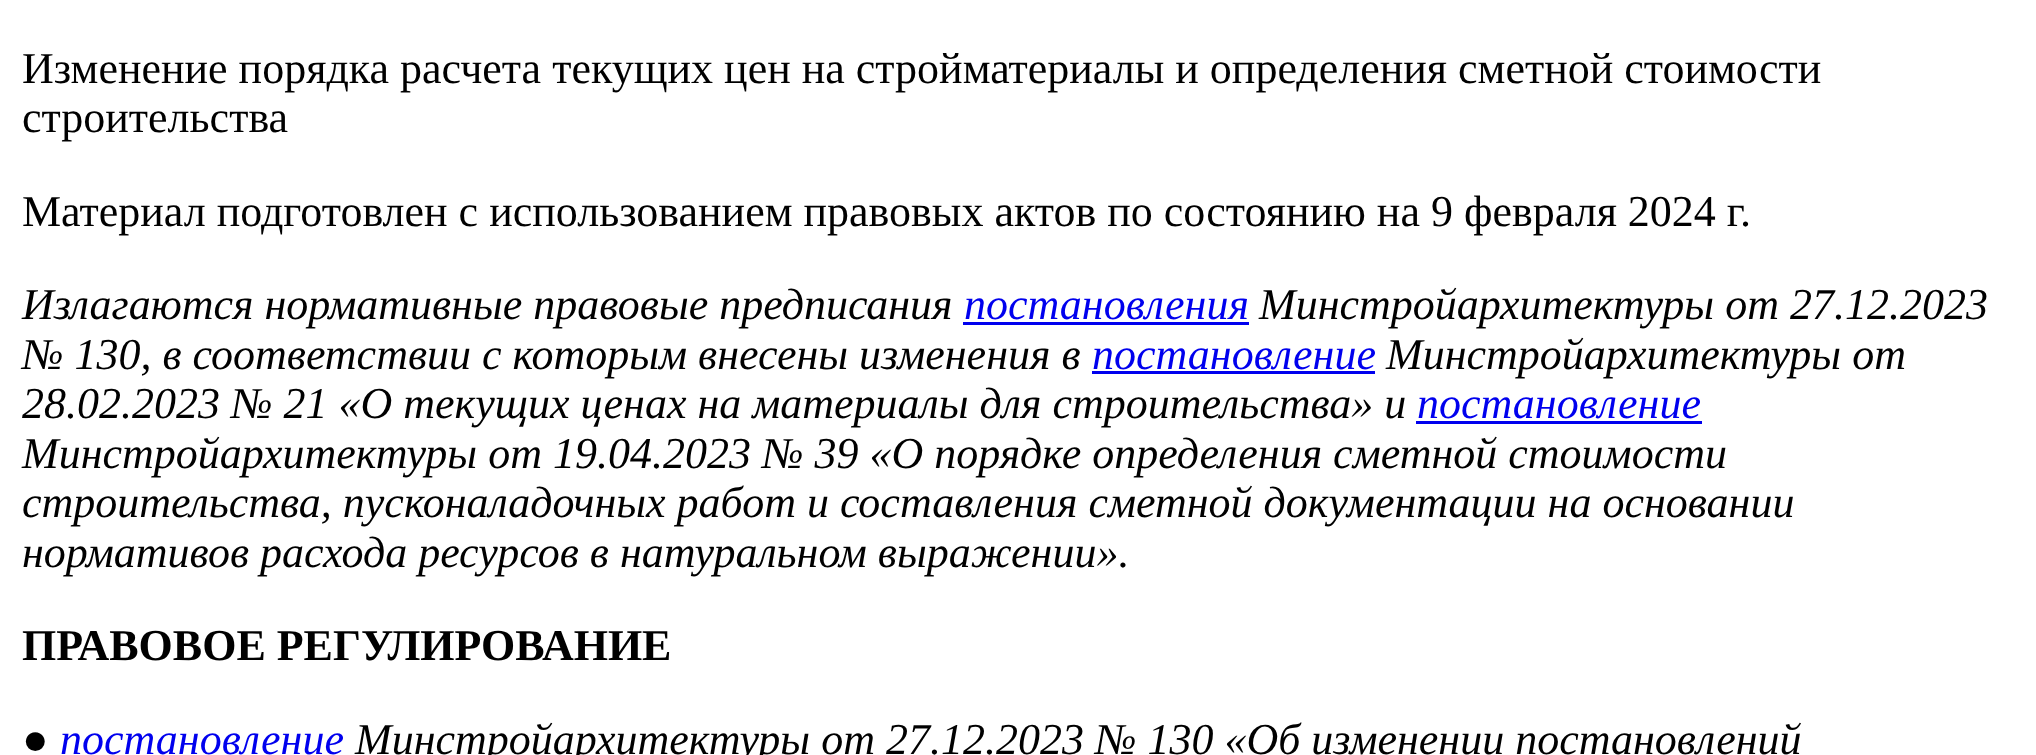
(async () => {
const canvas = document.querySelector("canvas")
canvas.width = 2036
canvas.height = 755
const c = canvas.getContext("2d")
c.miterLimit = 4
c.fontKerning = "normal"
function T(s,x,y){c.fillText(s,x,y)}
function R(x,y,w,h){c.fillRect(x,y,w,h)}
c.fillStyle="#fff"
R(0,0,2036,755)
c.font="44px Liberation Serif"
c.fillStyle="#000"
T("Изменение порядка расчета текущих цен на стройматериалы и определения сметной стоимости",22,83)
T("строительства",22,132)
T("Материал подготовлен с использованием правовых актов по состоянию на 9 февраля 2024 г.",22,226)
c.font="italic 44px Liberation Serif"
T("Излагаются нормативные правовые предписания",22,319)
c.fillStyle="#00e"
T("постановления",964,319)
R(963,322,286,3)
c.fillStyle="#000"
T("Минстройархитектуры от 27.12.2023",1259,319)
T("№ 130, в соответствии с которым внесены изменения в",22,369)
c.fillStyle="#00e"
T("постановление",1092,369)
R(1092,371,283,3)
c.fillStyle="#000"
T("Минстройархитектуры от",1386,369)
T("28.02.2023 № 21 «О текущих ценах на материалы для строительства» и",22,418)
c.fillStyle="#00e"
T("постановление",1417,418)
R(1416,421,286,3)
c.fillStyle="#000"
T("Минстройархитектуры от 19.04.2023 № 39 «О порядке определения сметной стоимости",22,468)
T("строительства, пусконаладочных работ и составления сметной документации на основании",22,517)
T("нормативов расхода ресурсов в натуральном выражении».",22,567)
c.font="bold 44px Liberation Serif"
T("ПРАВОВОЕ РЕГУЛИРОВАНИЕ",22,660)
c.font="italic 44px Liberation Serif"
T("●",22,754)
c.fillStyle="#00e"
T("постановление",60,754)
c.fillStyle="#000"
T("Минстройархитектуры от 27.12.2023 № 130 «Об изменении постановлений",355,754)
})()
